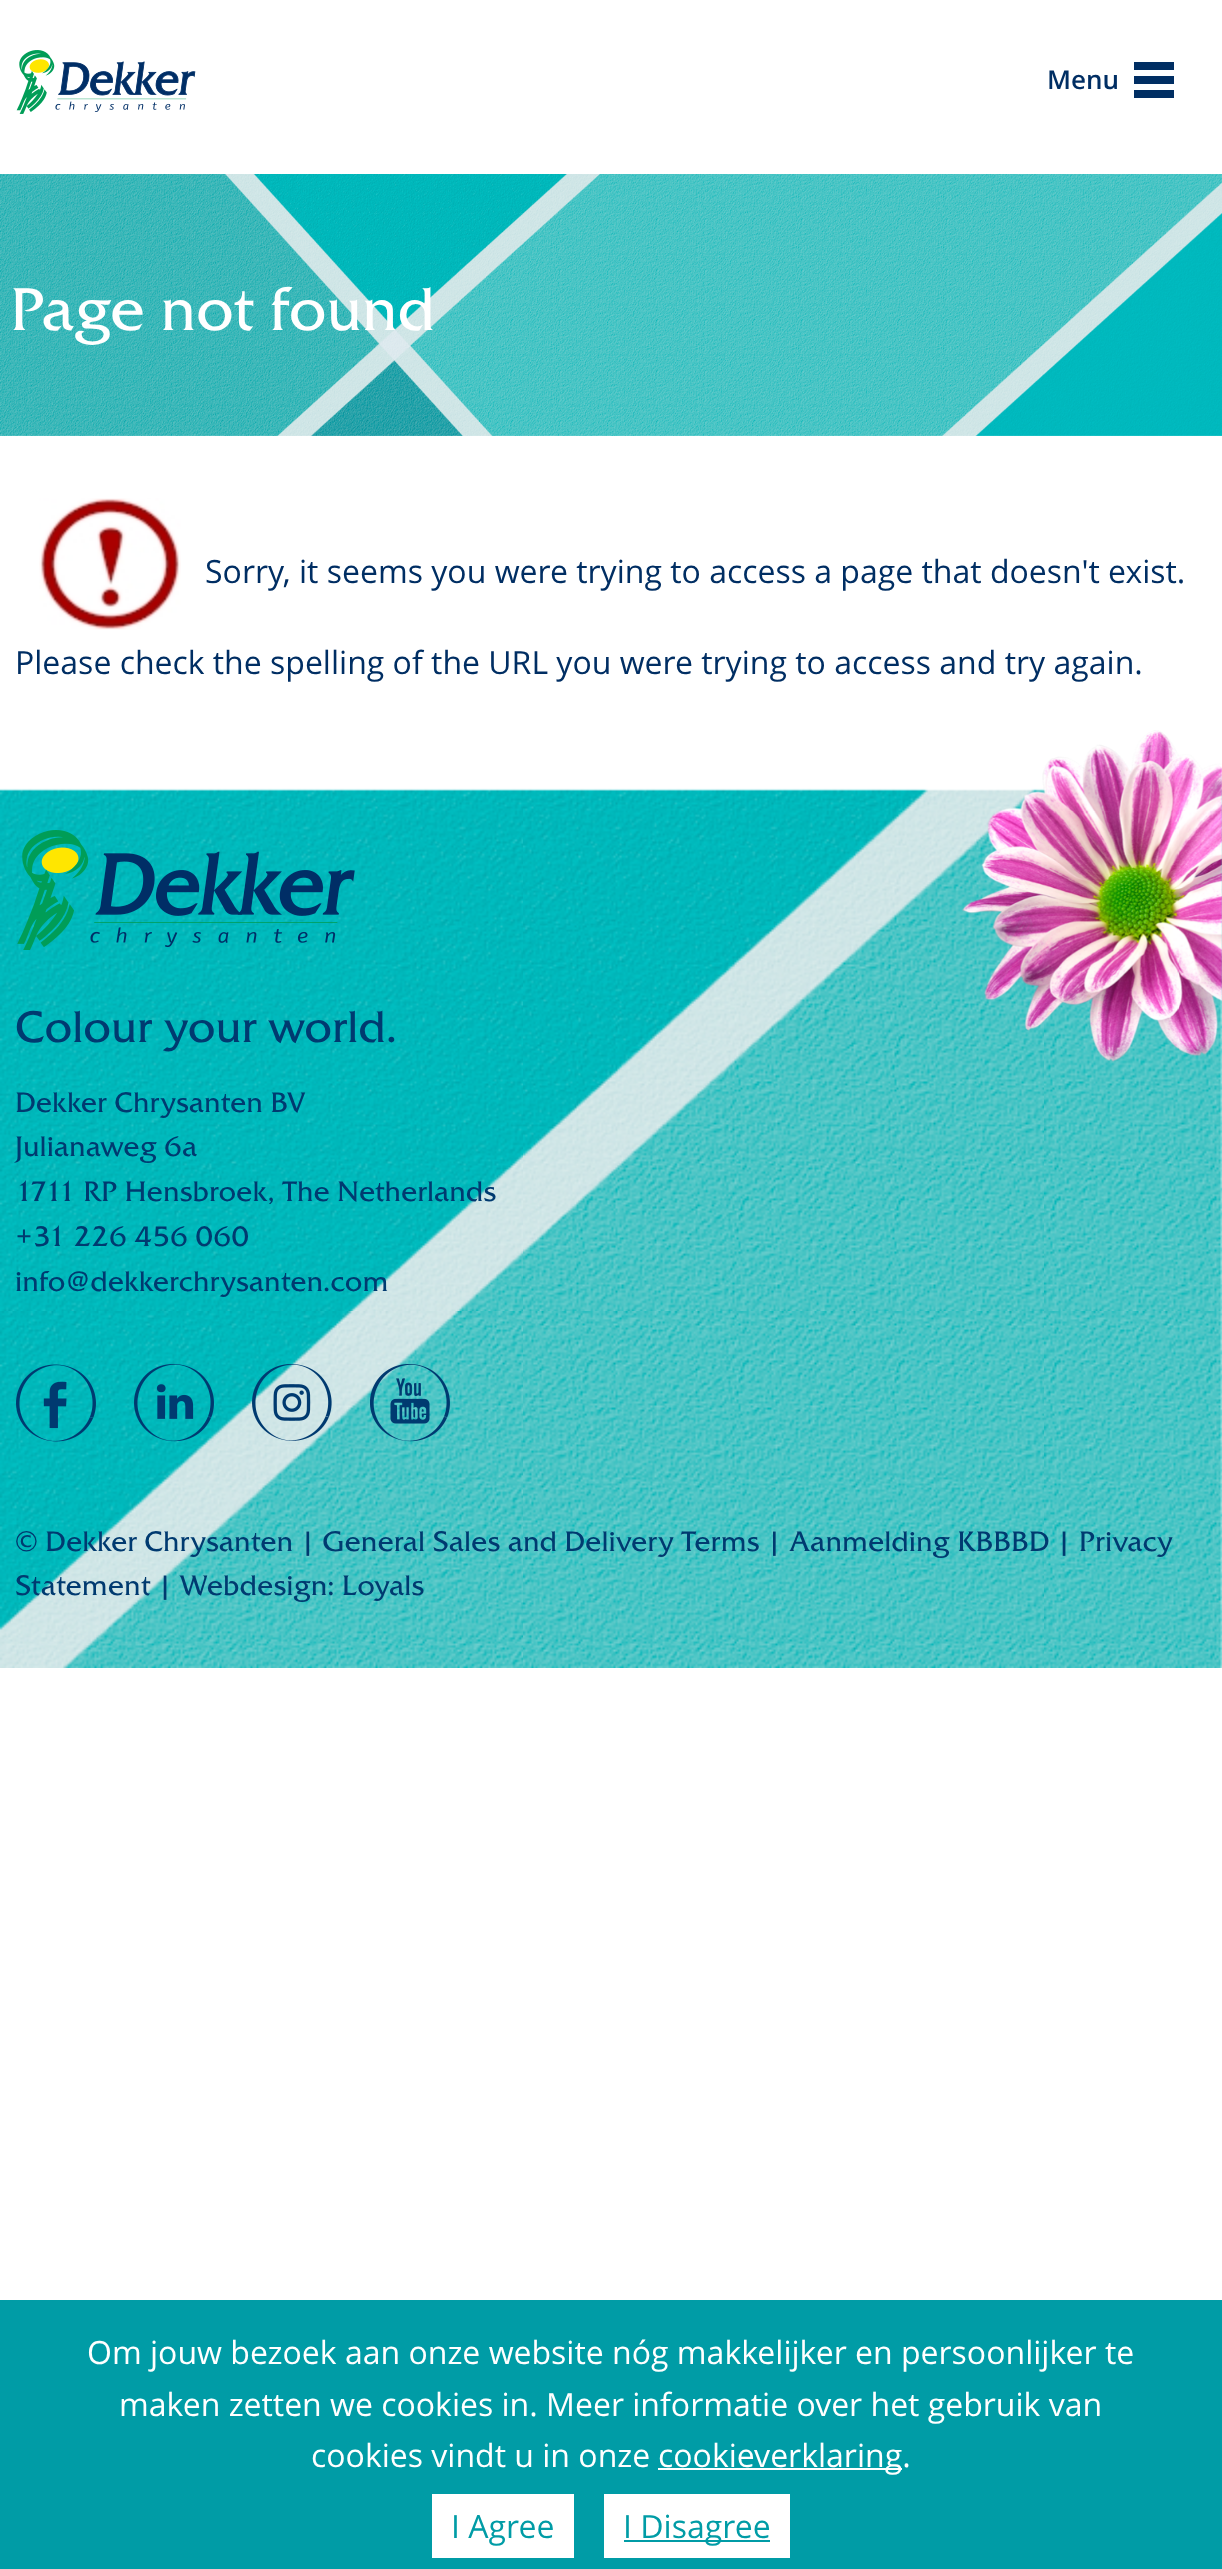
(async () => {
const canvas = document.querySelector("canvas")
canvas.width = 1222
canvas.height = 2569
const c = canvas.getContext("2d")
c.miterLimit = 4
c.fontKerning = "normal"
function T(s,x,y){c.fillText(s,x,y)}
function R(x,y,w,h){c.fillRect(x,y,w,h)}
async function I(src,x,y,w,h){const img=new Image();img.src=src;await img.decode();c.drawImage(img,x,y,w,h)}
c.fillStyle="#fff"
R(0,0,1222,2569)
await I("1.png",16,50,180,64)
c.font="600 26px Open Sans"
c.fillStyle="#002e63"
T("Menu",1047,89)
R(1134,90,40,8)
R(1134,76,40,8)
R(1134,62,40,8)
await I("2.png",0,174,1222,262)
c.font="60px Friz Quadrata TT"
c.fillStyle="#fff"
T("Page not found",10,330)
await I("3.png",39,498,142,132)
c.font="32px Open Sans"
c.fillStyle="#002e63"
T("Sorry, it seems you were trying to access a page that doesn't exist.",205,583)
T("Please check the spelling of the URL you were trying to access and try again.",15,674)
await I("4.png",0,788,1222,880)
await I("5.png",962,730,260,332)
await I("6.png",17,830,338,120)
c.font="44px Friz Quadrata TT"
c.fillStyle="#003a70"
T("Colour your world.",15,1042)
c.font="28px Friz Quadrata TT"
T("Dekker Chrysanten BV",15,1112)
T("Julianaweg 6a",15,1156)
T("1711 RP Hensbroek, The Netherlands",15,1201)
T("+31 226 456 060",15,1246)
T("info@dekkerchrysanten.com",15,1291)
await I("7.png",16,1364,80,78)
await I("8.png",134,1364,80,78)
await I("9.png",252,1364,80,77)
await I("10.png",370,1364,80,78)
T("© Dekker Chrysanten | General Sales and Delivery Terms | Aanmelding KBBBD | Privacy",15,1551)
T("Statement | Webdesign: Loyals",15,1595)
c.fillStyle="#009ca6"
R(0,2300,1222,269)
c.font="32px Open Sans"
c.fillStyle="#fff"
T("Om jouw bezoek aan onze website nóg makkelijker en persoonlijker te",87,2364)
T("maken zetten we cookies in. Meer informatie over het gebruik van",119,2416)
T("cookies vindt u in onze",311,2467)
R(658,2468,244,2)
T("cookieverklaring.",658,2467)
R(432,2494,142,64)
c.fillStyle="#009ca6"
T("I Agree",451,2538)
c.fillStyle="#fff"
R(604,2494,186,64)
c.fillStyle="#009ca6"
R(624,2540,146,2)
T("I Disagree",623,2538)
})()
